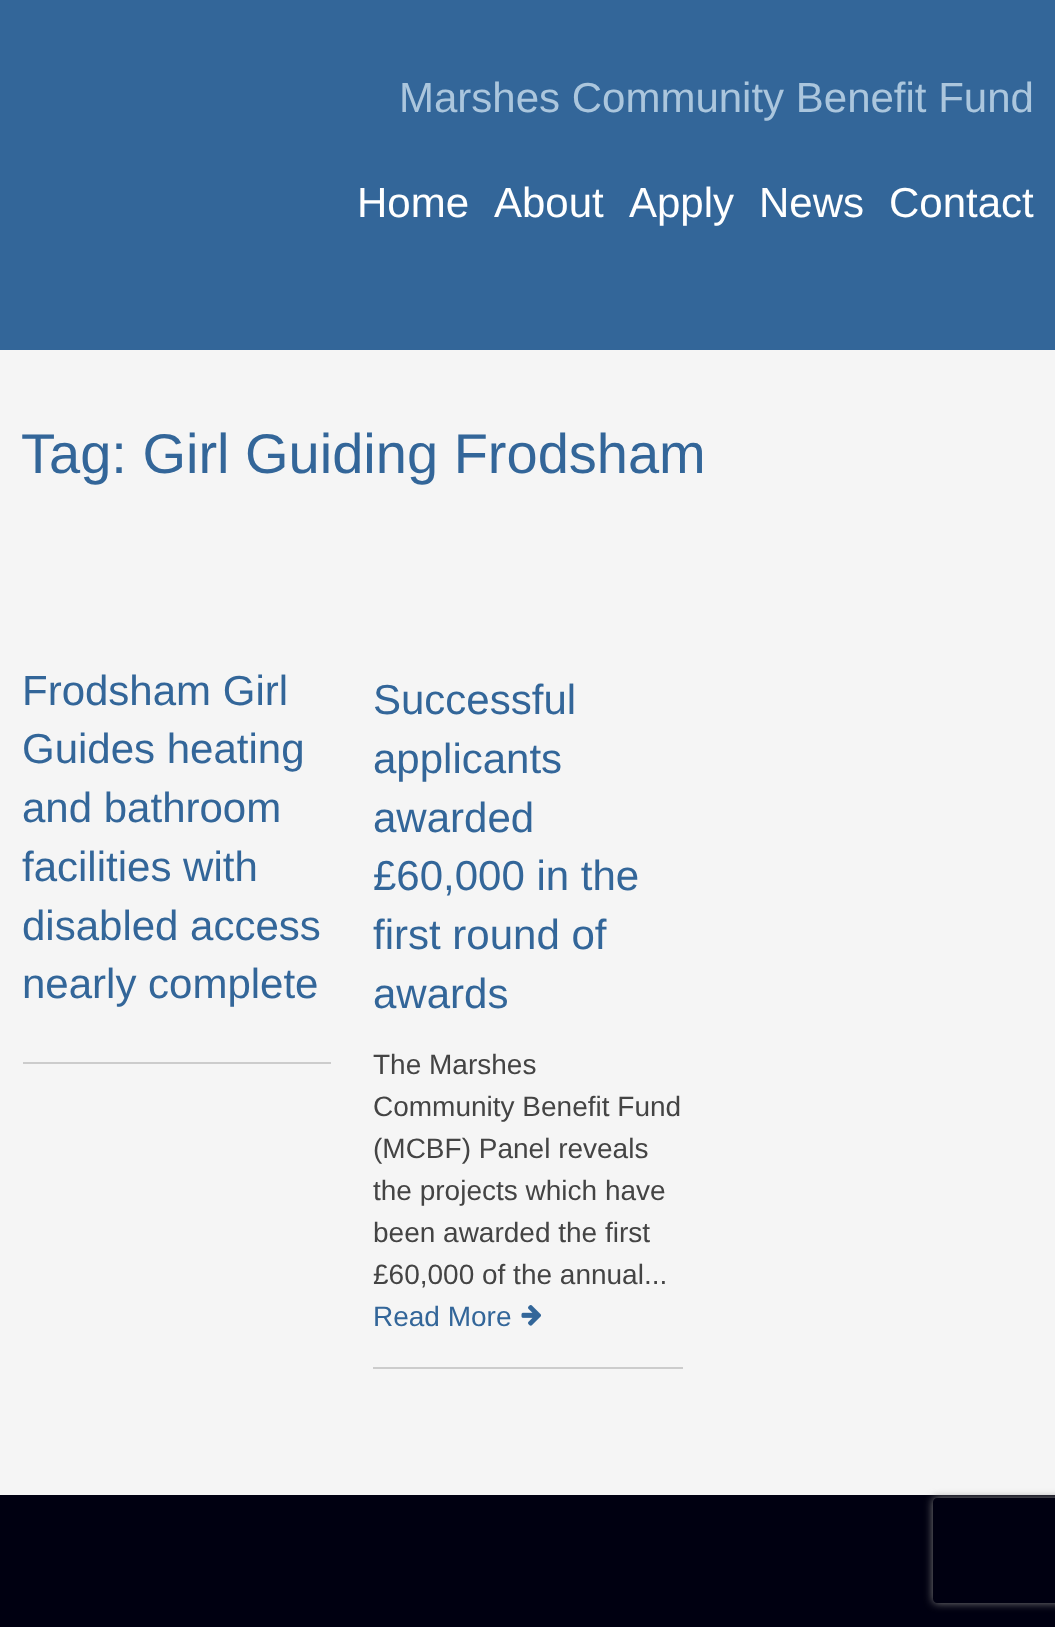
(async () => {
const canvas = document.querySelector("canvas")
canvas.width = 1055
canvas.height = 1627
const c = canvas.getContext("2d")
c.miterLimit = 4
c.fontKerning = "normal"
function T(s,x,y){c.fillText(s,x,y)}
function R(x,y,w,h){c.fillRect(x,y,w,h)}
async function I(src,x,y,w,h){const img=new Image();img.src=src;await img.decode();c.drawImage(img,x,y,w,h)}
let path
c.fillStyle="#f5f5f5"
R(0,0,1055,1627)
c.fillStyle="#369"
R(0,0,1055,350)
c.font="42px Liberation Sans"
c.fillStyle="#abc6dd"
T("Marshes Community Benefit Fund",399,112)
c.fillStyle="#fff"
T("Home",357,217)
T("About",494,217)
T("Apply",629,217)
T("News",759,217)
T("Contact",889,217)
c.font="56px Liberation Sans"
c.fillStyle="#369"
T("Tag: Girl Guiding Frodsham",21,473)
c.font="42px Liberation Sans"
T("Frodsham Girl",22,705)
T("Guides heating",22,763)
T("and bathroom",22,822)
T("facilities with",22,881)
T("disabled access",22,940)
T("nearly complete",22,998)
c.fillStyle="#ccc"
R(23,1062,308,2)
c.fillStyle="#369"
T("Successful",373,714)
T("applicants",373,773)
T("awarded",373,832)
T("£60,000 in the",373,890)
T("first round of",373,949)
T("awards",373,1008)
c.fillStyle="#ccc"
R(373,1367,310,2)
c.font="28px Liberation Sans"
c.fillStyle="#444"
T("The Marshes",373,1074)
T("Community Benefit Fund",373,1116)
T("(MCBF) Panel reveals",373,1158)
T("the projects which have",373,1200)
T("been awarded the first",373,1242)
T("£60,000 of the annual...",373,1284)
c.fillStyle="#369"
T("Read More",373,1326)
await I("1.png",521,1305,20,21)
c.fillStyle="#001"
R(0,1495,1055,132)
c.save()
path = new Path2D("M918 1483h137v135h-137zm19 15h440c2 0 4 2 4 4v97c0 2-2 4-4 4h-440c-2 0-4-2-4-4v-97c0-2 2-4 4-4z")
c.clip(path,"evenodd")
c.fillStyle="#808080"
c.filter="blur(4.5px)"
c.beginPath()
c.roundRect(933,1498,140,105,4)
c.fill()
c.filter="none"
c.restore()
})()
